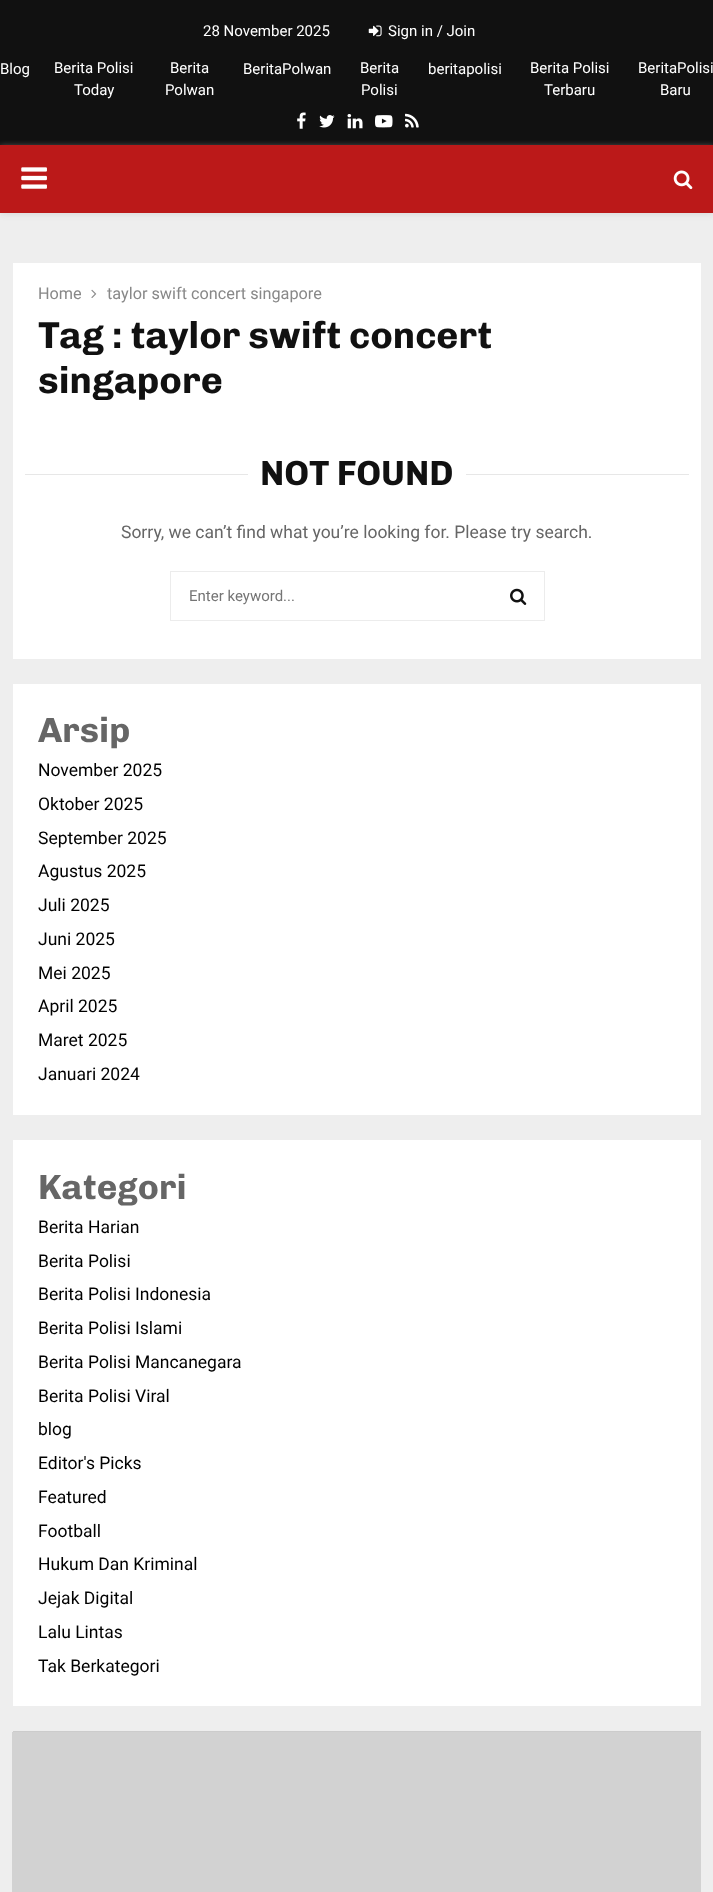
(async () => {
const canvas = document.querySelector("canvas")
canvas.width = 713
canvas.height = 1892
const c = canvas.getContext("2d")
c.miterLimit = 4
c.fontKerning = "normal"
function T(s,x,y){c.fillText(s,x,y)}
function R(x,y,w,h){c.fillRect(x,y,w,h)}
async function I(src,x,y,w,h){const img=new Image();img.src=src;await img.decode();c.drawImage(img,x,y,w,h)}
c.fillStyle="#eee"
R(0,0,713,1892)
c.fillStyle="#111"
R(0,0,713,145)
c.font="15px Roboto"
c.fillStyle="#fff"
T("28 November 2025",203,36)
await I("1.png",368,25,14,12)
T("Sign in / Join",388,36)
T("Blog",0,74)
T("Berita Polisi",54,73)
T("Today",74,95)
T("Berita",170,73)
T("Polwan",165,95)
T("BeritaPolwan",243,74)
T("Berita",360,73)
T("Polisi",361,95)
T("beritapolisi",428,74)
T("Berita Polisi",530,73)
T("Terbaru",544,95)
T("BeritaPolisi",638,73)
T("Baru",660,95)
await I("2.png",297,112,9,17)
await I("3.png",319,115,16,13)
await I("4.png",347,114,16,15)
await I("5.png",375,115,18,13)
await I("6.png",405,113,14,15)
c.fillStyle="#bebebe75"
c.filter="blur(3px)"
c.beginPath()
c.rect(0,146,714,68)
c.fill()
c.filter="none"
c.fillStyle="#bb1919"
R(0,145,713,68)
await I("7.png",21,167,26,22)
await I("8.png",673,170,20,20)
c.fillStyle="#fff"
R(13,263,688,396)
c.font="16.25px Roboto"
c.fillStyle="#888"
T("Home",38,299)
await I("9.png",91,289,6,9)
T("taylor swift concert singapore",107,299)
c.font="bold 37.5px Chivo"
c.fillStyle="#111"
T("Tag : taylor swift concert",38,348)
T("singapore",38,393)
c.fillStyle="#e7e7e7"
R(25,474,223,1)
c.font="bold 35px Chivo"
c.fillStyle="#111"
T("NOT FOUND",260,485)
c.fillStyle="#e7e7e7"
R(466,474,223,1)
c.font="17.5px Roboto"
c.fillStyle="#666"
T("Sorry, we can’t find what you’re looking for. Please try search.",121,538)
c.strokeStyle="#ececec"
c.strokeRect(170.5,571.5,374,49)
c.font="15px Roboto"
c.fillStyle="#757575"
T("Enter keyword...",189,601)
await I("10.png",510,588,17,17)
c.fillStyle="#fff"
R(13,684,688,431)
c.font="bold 35px Chivo"
c.fillStyle="#666"
T("Arsip",38,742)
c.font="17.5px Roboto"
c.fillStyle="#000"
T("November 2025",38,776)
T("Oktober 2025",38,810)
T("September 2025",38,844)
T("Agustus 2025",38,877)
T("Juli 2025",38,911)
T("Juni 2025",38,945)
T("Mei 2025",38,979)
T("April 2025",38,1012)
T("Maret 2025",38,1046)
T("Januari 2024",38,1080)
c.fillStyle="#fff"
R(13,1140,688,566)
c.font="bold 35px Chivo"
c.fillStyle="#666"
T("Kategori",38,1199)
c.font="17.5px Roboto"
c.fillStyle="#000"
T("Berita Harian",38,1233)
T("Berita Polisi",38,1267)
T("Berita Polisi Indonesia",38,1300)
T("Berita Polisi Islami",38,1334)
T("Berita Polisi Mancanegara",38,1368)
T("Berita Polisi Viral",38,1402)
T("blog",38,1435)
T("Editor's Picks",38,1469)
T("Featured",38,1503)
T("Football",38,1537)
T("Hukum Dan Kriminal",38,1570)
T("Jejak Digital",38,1604)
T("Lalu Lintas",38,1638)
T("Tak Berkategori",38,1672)
c.fillStyle="#ccc"
R(13,1731,688,1)
c.fillStyle="#d2d2d2"
R(12,1732,689,160)
})()
